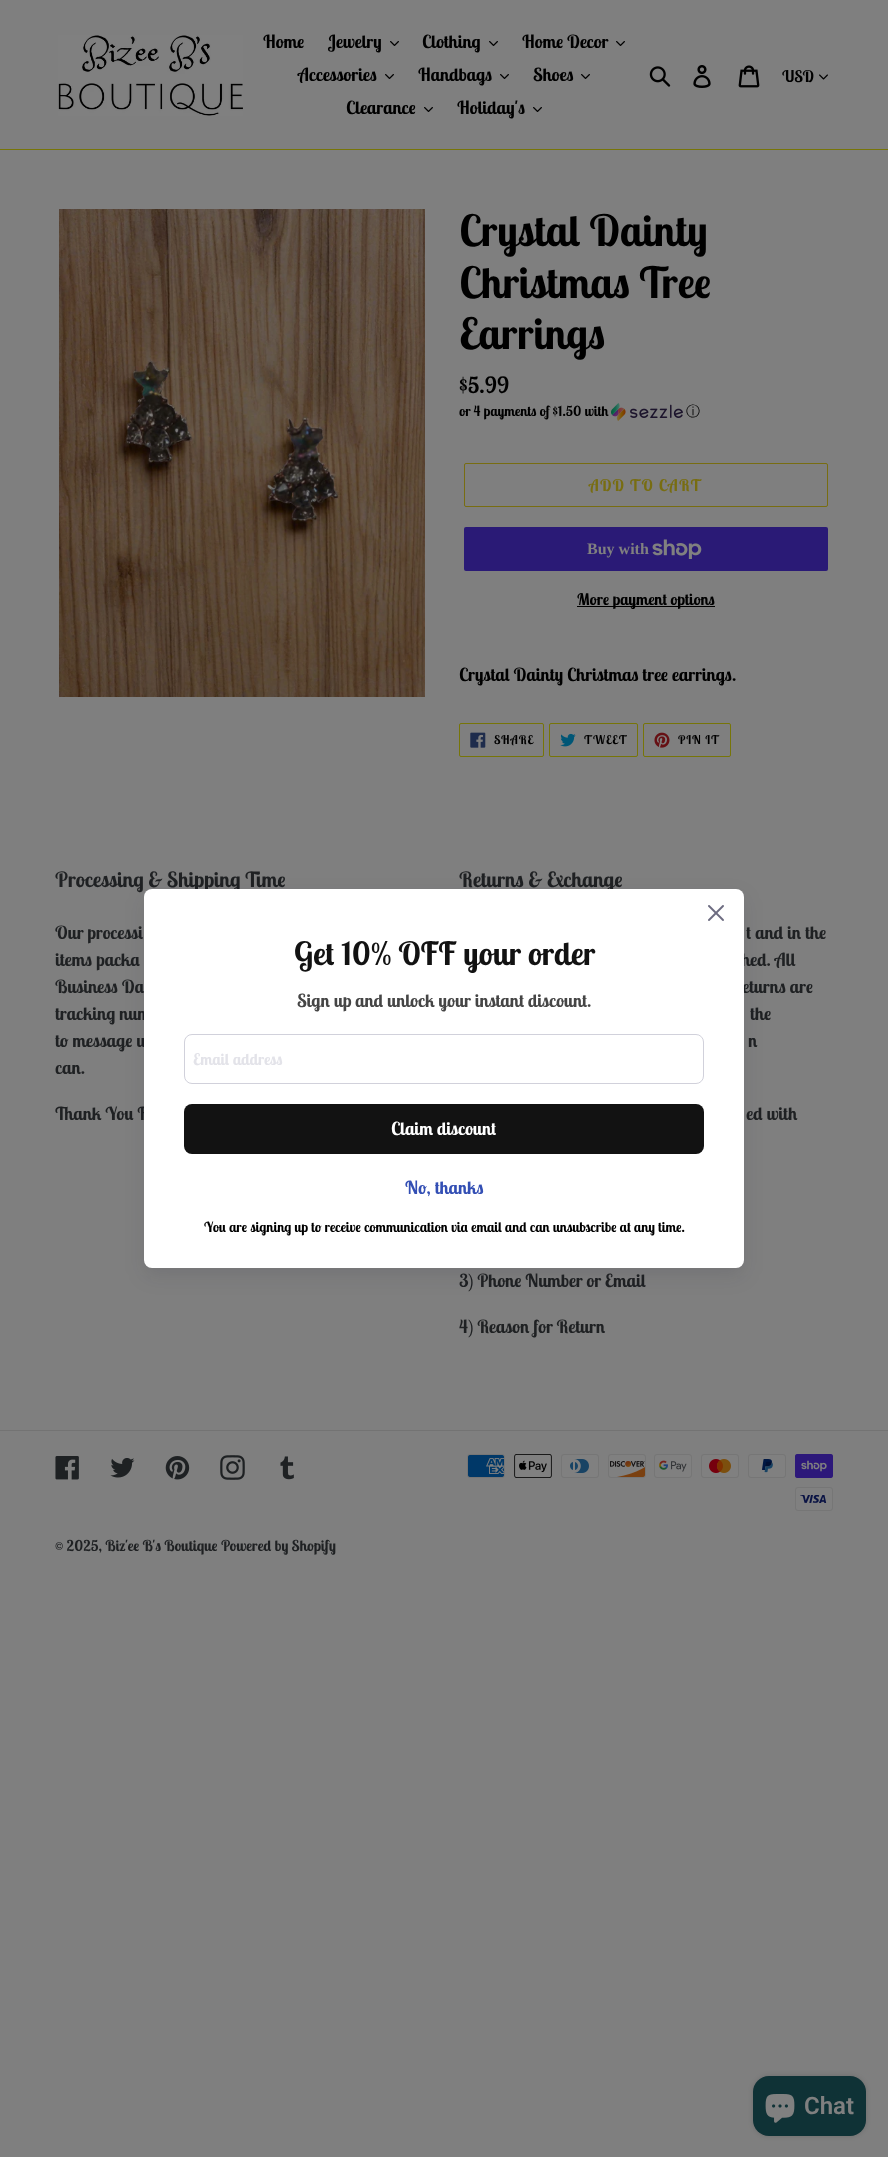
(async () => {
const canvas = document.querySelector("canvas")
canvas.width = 888
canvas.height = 2157
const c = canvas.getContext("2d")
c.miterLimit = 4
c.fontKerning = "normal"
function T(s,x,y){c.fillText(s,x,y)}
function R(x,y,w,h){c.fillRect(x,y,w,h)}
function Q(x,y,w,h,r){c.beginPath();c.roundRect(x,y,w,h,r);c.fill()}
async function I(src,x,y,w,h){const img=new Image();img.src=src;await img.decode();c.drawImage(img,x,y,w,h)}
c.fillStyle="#7f7f7f"
R(0,0,888,2157)
c.fillStyle="#777508"
R(0,149,888,1)
await I("1.png",58,35,185,81)
c.font="bold 18px Lobster Two"
c.fillStyle="#000"
T("Home",263,48)
T("Jewelry",328,48)
await I("2.png",390,41,9,5)
T("Clothing",422,48)
await I("2.png",489,41,9,5)
T("Home Decor",522,48)
await I("2.png",616,41,9,5)
T("Accessories",298,81)
await I("2.png",385,74,9,5)
T("Handbags",418,81)
await I("2.png",500,74,9,5)
T("Shoes",533,81)
await I("2.png",581,74,9,5)
T("Clearance",346,114)
await I("2.png",424,107,9,5)
T("Holiday's",457,114)
await I("2.png",533,107,9,5)
await I("3.png",649,66,22,21)
await I("4.png",693,65,18,23)
await I("5.png",738,65,22,23)
c.font="bold 16px Lobster Two"
T("USD",782,82)
await I("6.png",819,74,9,6)
await I("7.png",59,209,366,488)
c.font="bold 43px Lobster Two"
T("Crystal Dainty",459,246)
T("Christmas Tree",459,298)
T("Earrings",459,349)
c.font="bold 22.5px Lobster Two"
T("$5.99",459,393)
c.font="bold 14px Lobster Two"
T("or 4 payments of $1.50 with",459,416)
await I("8.png",611,403,72,18)
c.font="500 14px WenQuanYi Zen Hei"
T("ⓘ",686,416)
c.beginPath()
c.roundRect(464.5,463.5,363,43,1.5)
c.strokeStyle="#786d11"
c.stroke()
c.letterSpacing="1.25px"
c.font="bold 16px Lobster Two"
c.fillStyle="#786d11"
T("ADD TO CART",589,491)
c.fillStyle="#2a1a76"
Q(464,527,364,44,2)
c.letterSpacing="0px"
c.font="bold 16px Liberation Serif"
c.fillStyle="#808080"
T("Buy with",587,554)
await I("9.png",652,539,50,20)
c.fillStyle="#000"
R(577,606,138,1)
c.font="bold 16px Lobster Two"
T("More payment options",577,605)
c.font="bold 18px Lobster Two"
T("Crystal Dainty Christmas tree earrings.",459,681)
c.beginPath()
c.roundRect(459.5,723.5,84,33,1.5)
c.strokeStyle="#777508"
c.stroke()
await I("10.png",470,732,16,16)
c.letterSpacing="1px"
c.font="bold 12px Lobster Two"
T("SHARE",494,744)
c.beginPath()
c.roundRect(549.5,723.5,88,33,1.5)
c.stroke()
await I("11.png",560,733,16,14)
T("TWEET",584,744)
c.beginPath()
c.roundRect(643.5,723.5,87,33,1.5)
c.stroke()
await I("12.png",654,732,16,16)
T("PIN IT",678,744)
c.letterSpacing="0px"
c.font="bold 21px Lobster Two"
c.fillStyle="#1f2123"
T("Processing & Shipping Time",55,887)
c.font="bold 18px Lobster Two"
T("Our processi",55,939)
T("items packa",55,966)
T("Business Da",55,993)
T("tracking num",55,1020)
T("to message u",55,1047)
T("can.",55,1074)
T("Thank You F",55,1120)
c.font="bold 21px Lobster Two"
T("Returns & Exchange",459,887)
c.font="bold 18px Lobster Two"
T("t and in the",746,939)
T("hed. All",741,966)
T("eturns are",742,993)
T("the",750,1020)
T("n",748,1047)
T("ed with",746,1120)
T("3) Phone Number or Email",459,1287)
T("4) Reason for Return",459,1333)
c.fillStyle="#737373"
R(0,1430,888,1)
await I("13.png",55,1456,24,24)
await I("14.png",110,1458,25,20)
await I("15.png",165,1456,25,24)
await I("16.png",220,1455,25,25)
await I("17.png",280,1456,14,24)
await I("18.png",467,1454,38,24)
await I("19.png",514,1454,38,24)
await I("20.png",561,1454,38,24)
await I("21.png",608,1454,38,24)
await I("22.png",654,1454,38,24)
await I("23.png",701,1454,38,24)
await I("24.png",748,1454,38,24)
await I("25.png",795,1454,38,24)
await I("26.png",795,1487,38,24)
c.font="bold 15px Lobster Two"
c.fillStyle="#1f2123"
T("© 2025, Biz'ee B's Boutique",55,1551)
T("Powered by Shopify",221,1551)
c.fillStyle="#1211271a"
c.filter="blur(10px)"
c.beginPath()
c.roundRect(144,897,600,379,8)
c.fill()
c.filter="none"
c.fillStyle="#fff"
Q(144,889,600,379,8)
await I("27.png",708,905,16,16)
c.font="bold 32px Lobster Two"
c.fillStyle="#121212"
T("Get 10% OFF your order",294,965)
c.font="bold 18px Lobster Two"
c.fillStyle="#454545"
T("Sign up and unlock your instant discount.",297,1007)
c.beginPath()
c.roundRect(184.5,1034.5,519,49,7.5)
c.strokeStyle="#d1d1db"
c.stroke()
c.font="bold 16px Lobster Two"
c.fillStyle="#e3e3e9"
T("Email address",193,1065)
c.fillStyle="#121212"
Q(184,1104,520,50,8)
c.font="bold 18px Lobster Two"
c.fillStyle="#fff"
T("Claim discount",391,1135)
c.fillStyle="#334fb4"
T("No, thanks",405,1194)
c.font="bold 14px Lobster Two"
c.fillStyle="#000"
T("You are signing up to receive communication via email and can unsubscribe at any time.",204,1232)
c.fillStyle="#00000026"
c.filter="blur(2.5px)"
c.beginPath()
c.roundRect(753,2076,113,60,16)
c.fill()
c.filter="none"
c.fillStyle="#0f3236"
Q(753,2076,113,60,16)
await I("28.png",765,2094,30,29)
c.font="600 24px Roboto"
c.fillStyle="#808080"
T("Chat",804,2114)
})()
